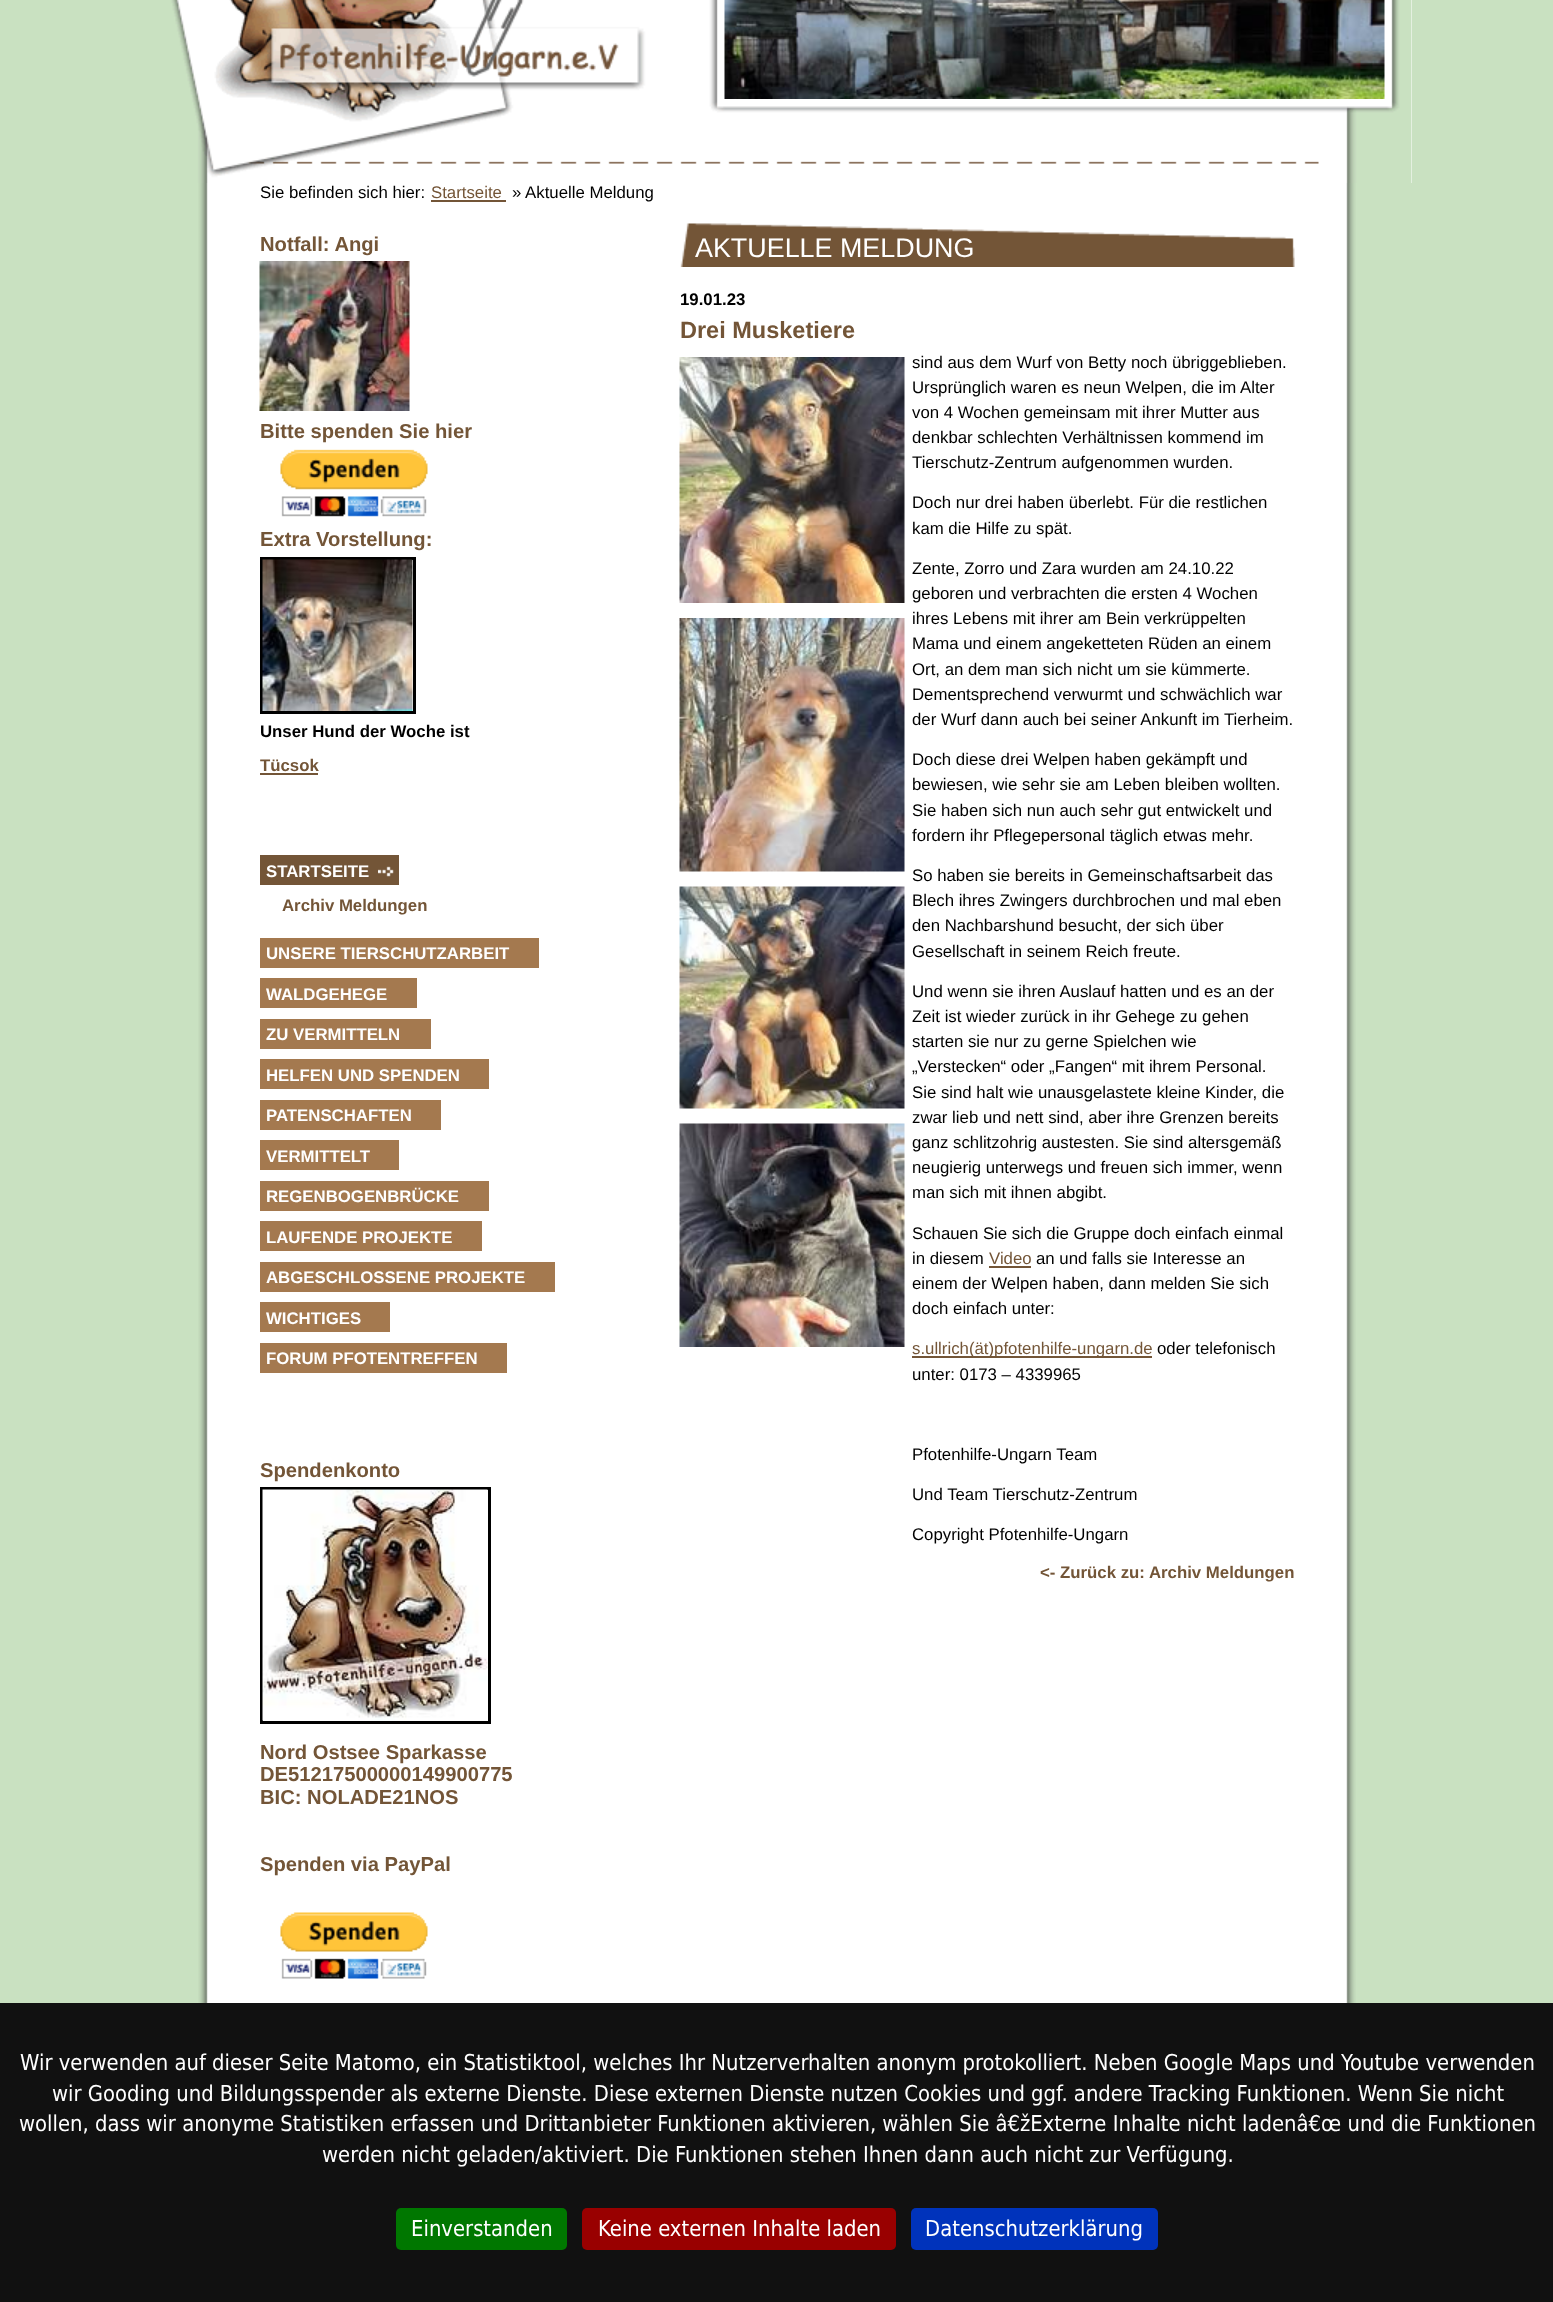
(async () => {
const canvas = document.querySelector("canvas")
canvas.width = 1553
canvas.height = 2302
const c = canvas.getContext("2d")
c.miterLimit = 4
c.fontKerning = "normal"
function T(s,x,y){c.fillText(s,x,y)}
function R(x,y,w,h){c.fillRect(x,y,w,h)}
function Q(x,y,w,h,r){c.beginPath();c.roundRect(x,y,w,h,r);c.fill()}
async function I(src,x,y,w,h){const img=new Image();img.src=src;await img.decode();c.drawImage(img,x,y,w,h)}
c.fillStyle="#c9e1c1"
R(0,0,1553,2302)
await I("1.png",198,183,1158,1820)
c.fillStyle="#fff"
R(1411,0,1,183)
await I("2.png",143,0,1269,183)
await I("3.png",724,0,661,99)
c.font="16.8px Liberation Sans"
c.fillStyle="#000"
T("Sie befinden sich hier:",260,198)
c.fillStyle="#735537"
T("Startseite",431,198)
R(431,200,75,2)
c.fillStyle="#000"
T("» Aktuelle Meldung",512,198)
c.font="bold 20.2px Liberation Sans"
c.fillStyle="#735537"
T("Notfall: Angi",260,251)
await I("4.png",259,261,151,150)
T("Bitte spenden Sie hier",260,438)
await I("5.png",280,449,148,68)
T("Extra Vorstellung:",260,546)
c.strokeStyle="#000"
c.lineWidth=3
c.strokeRect(261.5,558.5,153,154)
await I("6.png",262,559,151,152)
c.font="bold 16.8px Liberation Sans"
c.fillStyle="#000"
T("Unser Hund der Woche ist",260,737)
c.fillStyle="#735537"
T("Tücsok",260,771)
R(260,773,58,2)
R(260,855,139,30)
c.fillStyle="#fff"
T("STARTSEITE",266,877)
await I("7.png",378,866,16,11)
c.fillStyle="#735537"
T("Archiv Meldungen",282,911)
c.fillStyle="#a4794f"
R(260,938,279,30)
c.fillStyle="#fff"
T("UNSERE TIERSCHUTZARBEIT",266,959)
c.fillStyle="#a4794f"
R(260,978,157,30)
c.fillStyle="#fff"
T("WALDGEHEGE",266,1000)
c.fillStyle="#a4794f"
R(260,1019,171,30)
c.fillStyle="#fff"
T("ZU VERMITTELN",266,1040)
c.fillStyle="#a4794f"
R(260,1059,229,30)
c.fillStyle="#fff"
T("HELFEN UND SPENDEN",266,1081)
c.fillStyle="#a4794f"
R(260,1100,181,30)
c.fillStyle="#fff"
T("PATENSCHAFTEN",266,1121)
c.fillStyle="#a4794f"
R(260,1140,139,30)
c.fillStyle="#fff"
T("VERMITTELT",266,1162)
c.fillStyle="#a4794f"
R(260,1181,229,30)
c.fillStyle="#fff"
T("REGENBOGENBRÜCKE",266,1202)
c.fillStyle="#a4794f"
R(260,1221,222,30)
c.fillStyle="#fff"
T("LAUFENDE PROJEKTE",266,1243)
c.fillStyle="#a4794f"
R(260,1262,295,30)
c.fillStyle="#fff"
T("ABGESCHLOSSENE PROJEKTE",266,1283)
c.fillStyle="#a4794f"
R(260,1302,130,30)
c.fillStyle="#fff"
T("WICHTIGES",266,1324)
c.fillStyle="#a4794f"
R(260,1343,247,30)
c.fillStyle="#fff"
T("FORUM PFOTENTREFFEN",266,1364)
c.font="bold 20.2px Liberation Sans"
c.fillStyle="#735537"
T("Spendenkonto",260,1477)
c.strokeRect(261.5,1488.5,228,234)
await I("8.png",262,1489,226,232)
T("Nord Ostsee Sparkasse",260,1759)
T("DE51217500000149900775",260,1781)
T("BIC: NOLADE21NOS",260,1804)
T("Spenden via PayPal",260,1871)
await I("9.png",280,1912,148,67)
await I("10.png",680,223,615,44)
c.font="26.9px Liberation Sans"
c.fillStyle="#fff"
T("AKTUELLE MELDUNG",695,257)
c.font="bold 16.8px Liberation Sans"
c.fillStyle="#000"
T("19.01.23",680,305)
c.font="bold 23.5px Liberation Sans"
c.fillStyle="#735537"
T("Drei Musketiere",680,338)
await I("11.png",679,357,226,246)
await I("12.png",679,618,226,254)
await I("13.png",679,886,226,223)
await I("14.png",679,1123,226,224)
c.font="16.8px Liberation Sans"
c.fillStyle="#000"
T("sind aus dem Wurf von Betty noch übriggeblieben.",912,368)
T("Ursprünglich waren es neun Welpen, die im Alter",912,393)
T("von 4 Wochen gemeinsam mit ihrer Mutter aus",912,418)
T("denkbar schlechten Verhältnissen kommend im",912,443)
T("Tierschutz-Zentrum aufgenommen wurden.",912,468)
T("Doch nur drei haben überlebt. Für die restlichen",912,508)
T("kam die Hilfe zu spät.",912,534)
T("Zente, Zorro und Zara wurden am 24.10.22",912,574)
T("geboren und verbrachten die ersten 4 Wochen",912,599)
T("ihres Lebens mit ihrer am Bein verkrüppelten",912,624)
T("Mama und einem angeketteten Rüden an einem",912,649)
T("Ort, an dem man sich nicht um sie kümmerte.",912,675)
T("Dementsprechend verwurmt und schwächlich war",912,700)
T("der Wurf dann auch bei seiner Ankunft im Tierheim.",912,725)
T("Doch diese drei Welpen haben gekämpft und",912,765)
T("bewiesen, wie sehr sie am Leben bleiben wollten.",912,790)
T("Sie haben sich nun auch sehr gut entwickelt und",912,816)
T("fordern ihr Pflegepersonal täglich etwas mehr.",912,841)
T("So haben sie bereits in Gemeinschaftsarbeit das",912,881)
T("Blech ihres Zwingers durchbrochen und mal eben",912,906)
T("den Nachbarshund besucht, der sich über",912,931)
T("Gesellschaft in seinem Reich freute.",912,957)
T("Und wenn sie ihren Auslauf hatten und es an der",912,997)
T("Zeit ist wieder zurück in ihr Gehege zu gehen",912,1022)
T("starten sie nur zu gerne Spielchen wie",912,1047)
T("„Verstecken“ oder „Fangen“ mit ihrem Personal.",912,1072)
T("Sie sind halt wie unausgelastete kleine Kinder, die",912,1098)
T("zwar lieb und nett sind, aber ihre Grenzen bereits",912,1123)
T("ganz schlitzohrig austesten. Sie sind altersgemäß",912,1148)
T("neugierig unterwegs und freuen sich immer, wenn",912,1173)
T("man sich mit ihnen abgibt.",912,1198)
T("Schauen Sie sich die Gruppe doch einfach einmal",912,1239)
T("in diesem",912,1264)
c.fillStyle="#735537"
T("Video",989,1264)
R(989,1266,42,2)
c.fillStyle="#000"
T("an und falls sie Interesse an",1036,1264)
T("einem der Welpen haben, dann melden Sie sich",912,1289)
T("doch einfach unter:",912,1314)
c.fillStyle="#735537"
R(912,1356,240,2)
T("s.ullrich(ät)pfotenhilfe-ungarn.de",912,1354)
c.fillStyle="#000"
T("oder telefonisch",1157,1354)
T("unter: 0173 – 4339965",912,1380)
T("Pfotenhilfe-Ungarn Team",912,1460)
T("Und Team Tierschutz-Zentrum",912,1500)
T("Copyright Pfotenhilfe-Ungarn",912,1540)
c.font="bold 16.8px Liberation Sans"
c.fillStyle="#735537"
T("<- Zurück zu: Archiv Meldungen",1040,1578)
c.fillStyle="#111"
R(0,2003,1553,299)
c.font="21.85px DejaVu Sans"
c.fillStyle="#fff"
T("Wir verwenden auf dieser Seite Matomo, ein Statistiktool, welches Ihr Nutzerverhalten anonym protokolliert. Neben Google Maps und Youtube verwenden",20,2070)
T("wir Gooding und Bildungsspender als externe Dienste. Diese externen Dienste nutzen Cookies und ggf. andere Tracking Funktionen. Wenn Sie nicht",52,2101)
T("wollen, dass wir anonyme Statistiken erfassen und Drittanbieter Funktionen aktivieren, wählen Sie â€žExterne Inhalte nicht ladenâ€œ und die Funktionen",19,2131)
T("werden nicht geladen/aktiviert. Die Funktionen stehen Ihnen dann auch nicht zur Verfügung.",322,2162)
c.fillStyle="#070"
Q(396,2208,171,42,5)
c.fillStyle="#fff"
T("Einverstanden",411,2236)
c.fillStyle="#900"
Q(582,2208,314,42,5)
c.fillStyle="#fff"
T("Keine externen Inhalte laden",598,2236)
c.fillStyle="#03b"
Q(911,2208,247,42,5)
c.fillStyle="#fff"
T("Datenschutzerklärung",925,2236)
})()
